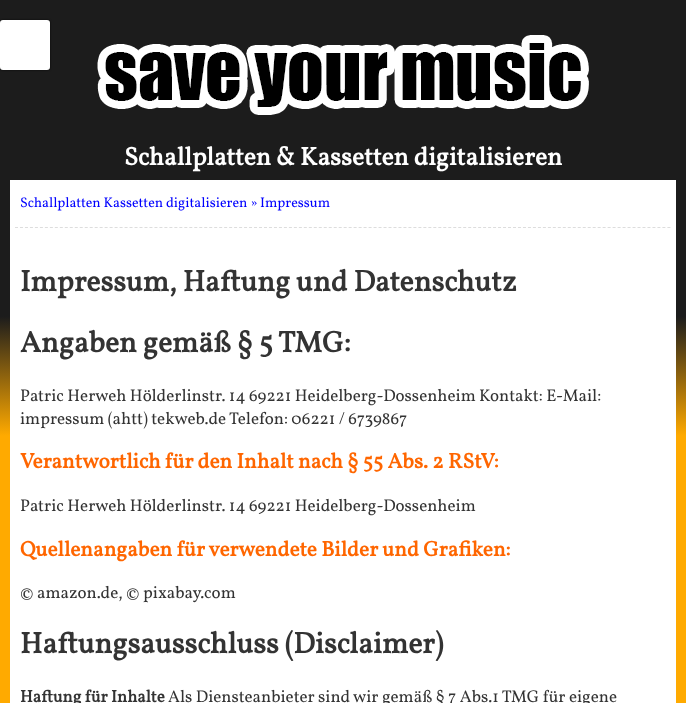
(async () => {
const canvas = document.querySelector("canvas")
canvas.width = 686
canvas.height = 703
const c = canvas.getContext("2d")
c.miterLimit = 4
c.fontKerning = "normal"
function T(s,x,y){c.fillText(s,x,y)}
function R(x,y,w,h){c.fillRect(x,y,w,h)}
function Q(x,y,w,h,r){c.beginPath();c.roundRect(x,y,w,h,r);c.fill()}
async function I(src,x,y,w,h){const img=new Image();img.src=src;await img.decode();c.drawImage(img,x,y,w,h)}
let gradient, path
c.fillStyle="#fff"
R(0,0,686,703)
gradient = c.createLinearGradient(343,0,343,703)
gradient.addColorStop(0,"#1c1c1c")
gradient.addColorStop(.45,"#1c1c1c")
gradient.addColorStop(.62,"#fa0")
gradient.addColorStop(1,"#fa0")
c.fillStyle = gradient
R(0,0,686,703)
c.fillStyle="#fff"
R(10,180,666,523)
c.fillStyle="#000000bf"
c.filter="blur(1px)"
c.beginPath()
c.roundRect(0,20,50,50,3)
c.fill()
c.filter="none"
c.fillStyle="#fff"
Q(0,20,50,50,3)
await I("1.png",97,35,492,80)
c.font="bold 25.5px Vollkorn"
T("Schallplatten & Kassetten digitalisieren",124,165)
path = new Path2D("M15 227.5h656")
c.strokeStyle="#ddd"
c.setLineDash([3,1.98])
c.stroke(path)
c.font="14px Vollkorn"
c.fillStyle="#00f"
T("Schallplatten Kassetten digitalisieren » Impressum",20,207)
c.font="bold 29.75px Vollkorn"
c.fillStyle="#333"
T("Impressum, Haftung und Datenschutz",20,291)
T("Angaben gemäß § 5 TMG:",20,352)
c.font="17px Vollkorn"
T("Patric Herweh Hölderlinstr. 14 69221 Heidelberg-Dossenheim Kontakt: E-Mail:",20,401)
T("impressum (ahtt) tekweb.de",20,424)
T("Telefon: 06221 / 6739867",229,424)
c.font="bold 21.25px Vollkorn"
c.fillStyle="#f60"
T("Verantwortlich für den Inhalt nach § 55 Abs. 2 RStV:",20,468)
c.font="17px Vollkorn"
c.fillStyle="#333"
T("Patric Herweh Hölderlinstr. 14 69221 Heidelberg-Dossenheim",20,511)
c.font="bold 21.25px Vollkorn"
c.fillStyle="#f60"
T("Quellenangaben für verwendete Bilder und Grafiken:",20,556)
c.font="17px Vollkorn"
c.fillStyle="#333"
T("© amazon.de, © pixabay.com",20,598)
c.font="bold 29.75px Vollkorn"
T("Haftungsausschluss (Disclaimer)",20,653)
c.font="bold 17px Vollkorn"
T("Haftung für Inhalte",20,702)
c.font="17px Vollkorn"
T("Als Diensteanbieter sind wir gemäß § 7 Abs.1 TMG für eigene",168,702)
})()
